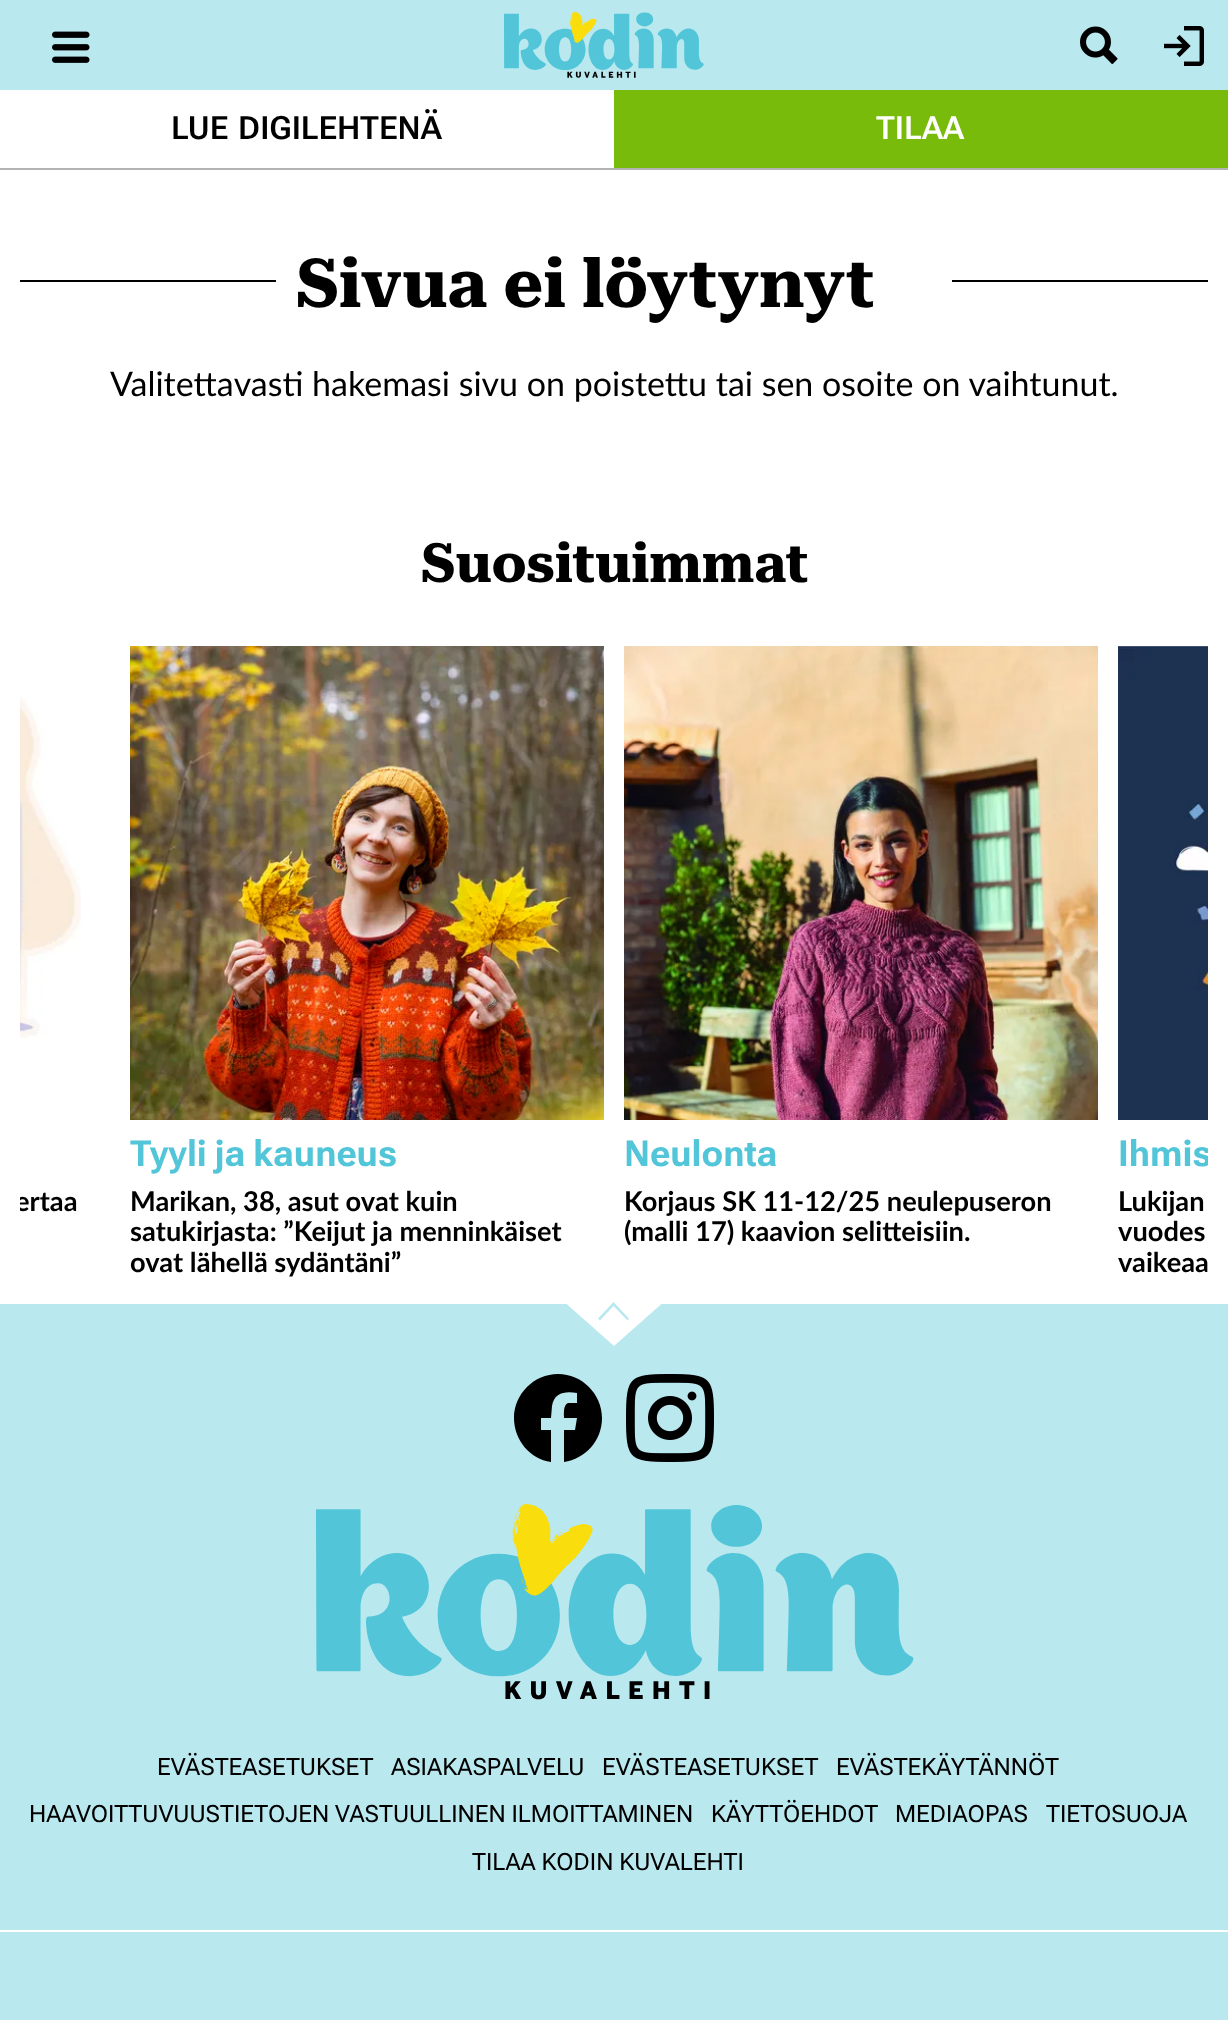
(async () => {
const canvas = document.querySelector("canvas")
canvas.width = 1228
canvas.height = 2020
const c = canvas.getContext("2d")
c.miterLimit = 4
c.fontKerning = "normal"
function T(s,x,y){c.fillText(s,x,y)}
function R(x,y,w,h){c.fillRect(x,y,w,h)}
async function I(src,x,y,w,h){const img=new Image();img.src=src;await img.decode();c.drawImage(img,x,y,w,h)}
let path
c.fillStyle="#fff"
R(0,0,1228,2020)
c.fillStyle="#bae8ef"
R(0,0,1228,90)
await I("1.png",52,31,38,32)
await I("2.png",504,12,200,66)
await I("3.png",1080,26,38,38)
await I("4.png",1164,26,40,40)
c.fillStyle="#b3b3b3"
R(0,168,1228,2)
c.wordSpacing="2px"
c.font="600 32px Roboto Flex"
c.fillStyle="#000"
T("LUE DIGILEHTENÄ",171,139)
c.fillStyle="#79bb0a"
R(614,90,614,78)
c.wordSpacing="0px"
c.fillStyle="#fff"
T("TILAA",876,139)
c.fillStyle="#000"
R(20,280,1188,2)
c.fillStyle="#fff"
R(276,280,676,2)
c.wordSpacing="-1px"
c.font="bold 68px Roboto Serif"
c.fillStyle="#000"
T("Sivua ei löytynyt",296,307)
c.wordSpacing="0px"
c.font="34px Lato"
T("Valitettavasti hakemasi sivu on poistettu tai sen osoite on vaihtunut.",110,396)
c.font="bold 54.5px Roboto Serif"
T("Suosituimmat",421,582)
await I("5.png",20,697,61,341)
c.save()
c.beginPath()
c.rect(20,1188,90,62)
c.clip()
c.font="bold 27.25px Lato"
T("ertaa",15,1211)
c.restore()
await I("6.png",130,646,474,474)
c.wordSpacing="-1px"
c.font="bold 36px Roboto Flex"
c.fillStyle="#52c6d8"
T("Tyyli ja kauneus",130,1166)
c.wordSpacing="0px"
c.font="bold 27.25px Lato"
c.fillStyle="#000"
T("Marikan, 38, asut ovat kuin",130,1211)
T("satukirjasta: ”Keijut ja menninkäiset",130,1241)
T("ovat lähellä sydäntäni”",130,1272)
await I("7.png",624,646,474,474)
c.font="bold 36px Roboto Flex"
c.fillStyle="#52c6d8"
T("Neulonta",624,1166)
c.font="bold 27.25px Lato"
c.fillStyle="#000"
T("Korjaus SK 11-12/25 neulepuseron",624,1211)
T("(malli 17) kaavion selitteisiin.",624,1241)
await I("8.png",1118,646,90,474)
c.save()
c.beginPath()
c.rect(1118,646,90,634)
c.clip()
c.wordSpacing="-2px"
c.font="bold 36px Roboto Flex"
c.fillStyle="#52c6d8"
T("Ihmis",1118,1166)
c.restore()
T("Lukijan",1118,1211)
T("vuodes",1118,1241)
T("vaikeaa",1118,1272)
c.fillStyle="#bae8ef"
R(0,1304,1228,716)
c.fillStyle="#fff"
path = new Path2D("M544 1284h140l-70 62z")
c.fill(path)
c.fillStyle="#bae8ef"
path = new Path2D("M627.5 1320.5l-14-14.5l-13.5 14.5l-2-2l15.5-16.5l15.5 16.5z")
c.fill(path)
c.fillStyle="#fff"
R(0,1930,1228,2)
c.fillStyle="#000"
path = new Path2D("M558 1374c-24 0-44 20-44 44c0 22 16 41 37 44v-32h-10v-12h10l1-12c2-14 14-15 25-13v10h-9c-5 2-4 11-4 15h13l-2 12h-11v32c21-3 38-21 38-44c0-24-20-44-44-44z")
c.fill(path)
await I("9.png",626,1374,88,88)
await I("10.png",316,1504,598,196)
c.font="23.8px Roboto Flex"
T("EVÄSTEASETUKSET",157,1775)
T("ASIAKASPALVELU",391,1775)
T("EVÄSTEASETUKSET",602,1775)
T("EVÄSTEKÄYTÄNNÖT",836,1775)
T("HAAVOITTUVUUSTIETOJEN VASTUULLINEN ILMOITTAMINEN",29,1822)
T("KÄYTTÖEHDOT",711,1822)
T("MEDIAOPAS",895,1822)
T("TIETOSUOJA",1046,1822)
T("TILAA KODIN KUVALEHTI",472,1870)
})()
